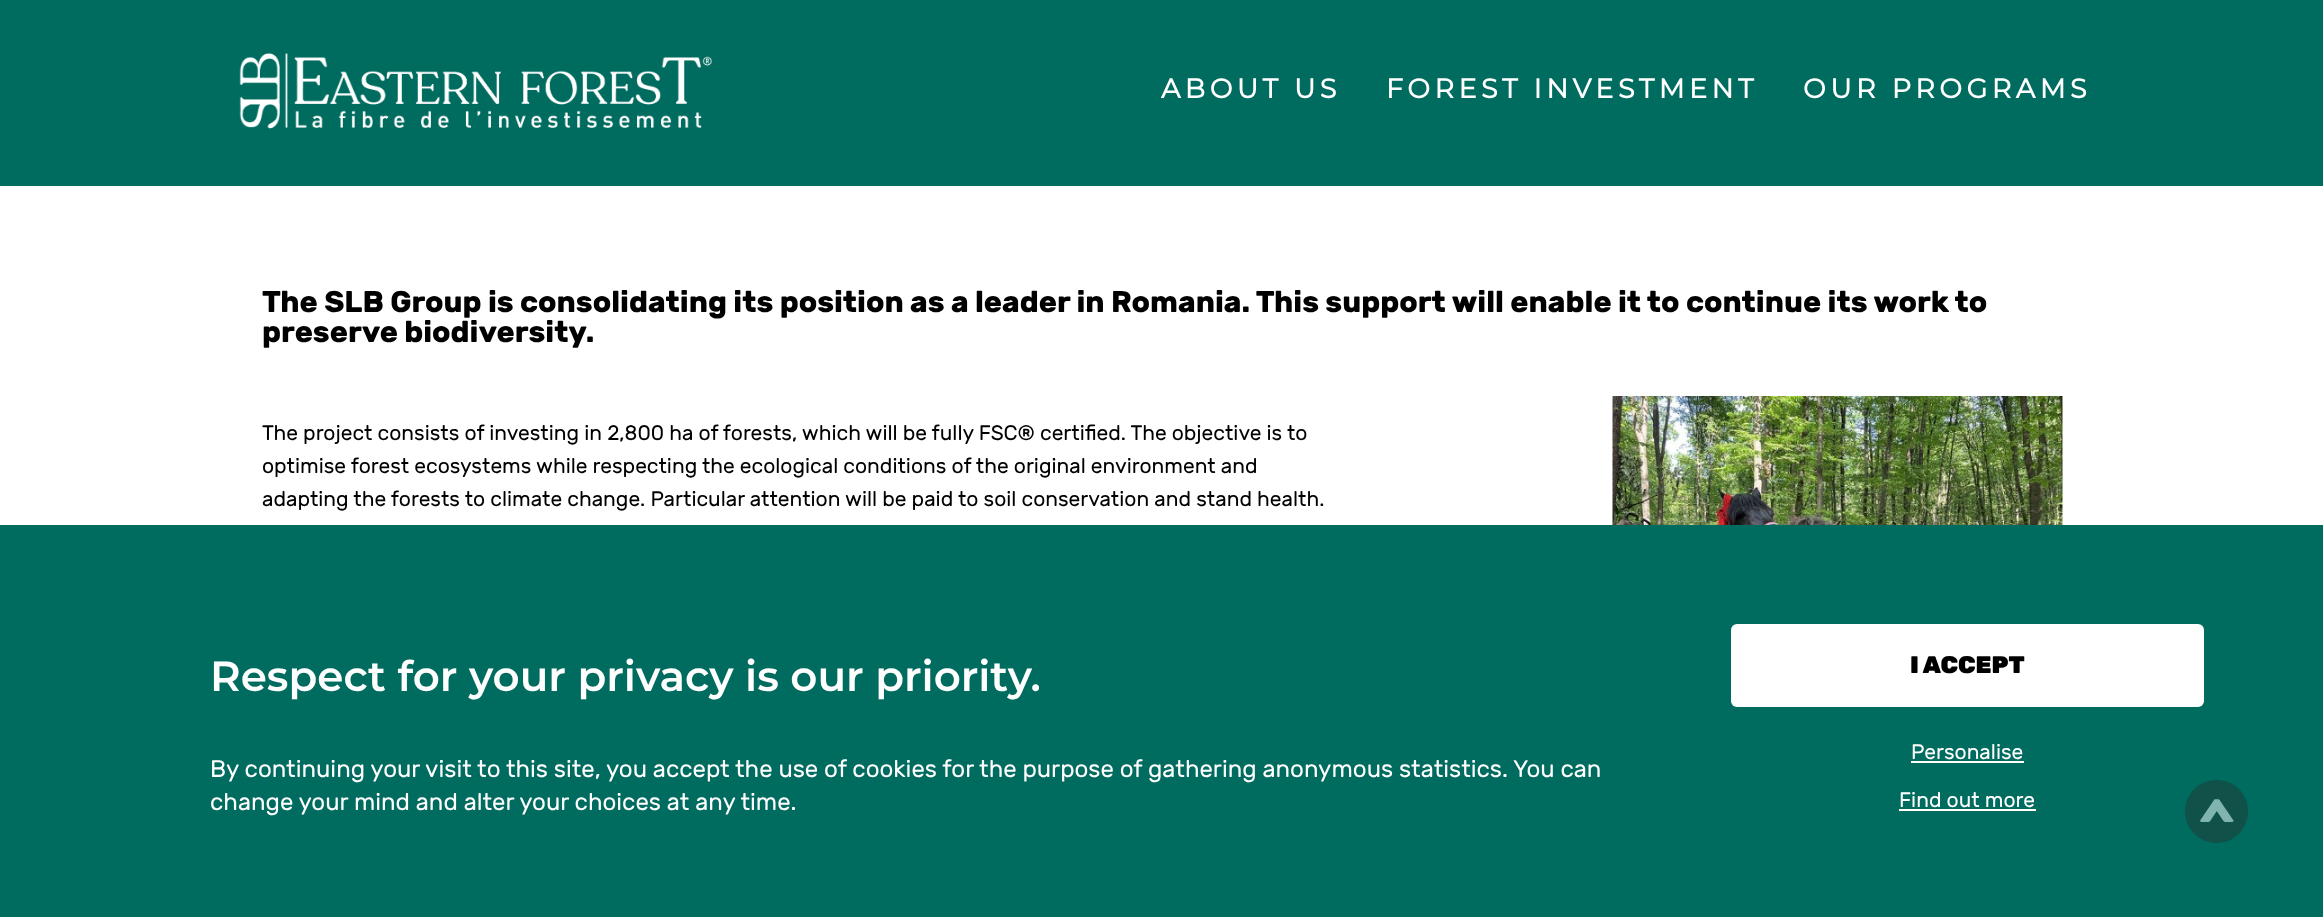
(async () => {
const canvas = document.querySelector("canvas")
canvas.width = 2323
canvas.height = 917
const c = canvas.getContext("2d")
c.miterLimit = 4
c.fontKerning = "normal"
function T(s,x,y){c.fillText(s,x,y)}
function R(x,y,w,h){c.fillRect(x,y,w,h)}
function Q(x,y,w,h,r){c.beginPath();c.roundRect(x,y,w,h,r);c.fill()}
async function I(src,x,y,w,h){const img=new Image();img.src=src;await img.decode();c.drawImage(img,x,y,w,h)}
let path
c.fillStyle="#fff"
R(0,0,2323,917)
c.fillStyle="#006b5f"
R(0,0,2323,186)
await I("1.png",239,53,473,76)
c.letterSpacing="4.5px"
c.font="bold 27px Montserrat"
c.fillStyle="#fff"
T("ABOUT US",1161,98)
T("FOREST INVESTMENT",1386,98)
T("OUR PROGRAMS",1803,98)
c.letterSpacing="0px"
c.font="bold 30px Rubik"
c.fillStyle="#000"
T("The SLB Group is consolidating its position as a leader in Romania. This support will enable it to continue its work to",262,312)
T("preserve biodiversity.",262,342)
c.font="21px Rubik"
T("The project consists of investing in 2,800 ha of forests, which will be fully FSC® certified. The objective is to",262,440)
T("optimise forest ecosystems while respecting the ecological conditions of the original environment and",262,473)
T("adapting the forests to climate change. Particular attention will be paid to soil conservation and stand health.",262,506)
await I("2.png",1612,396,451,129)
c.fillStyle="#006b5f"
R(0,525,2323,392)
c.font="600 42px Montserrat"
c.fillStyle="#fff"
T("Respect for your privacy is our priority.",210,691)
c.font="24px Rubik"
T("By continuing your visit to this site, you accept the use of cookies for the purpose of gathering anonymous statistics. You can",210,777)
T("change your mind and alter your choices at any time.",210,810)
Q(1731,624,473,83,6)
c.font="900 24px Rubik"
c.fillStyle="#000"
T("I ACCEPT",1910,673)
c.font="21px Rubik"
c.fillStyle="#fff"
T("Personalise",1911,759)
R(1911,761,113,2)
T("Find out more",1899,807)
R(1899,809,137,2)
c.fillStyle="#105149"
path = new Path2D("M2185 811c0-17 14-31 32-31c17 0 31 14 31 31c0 18-14 32-31 32c-18 0-32-14-32-32z")
c.fill(path)
c.font="bold 52px Rubik"
c.fillStyle="#80b5af"
c.save()
c.translate(2235,825)
c.rotate(-90 * Math.PI / 180)
c.fillText(">",0,0)
c.restore()
})()
